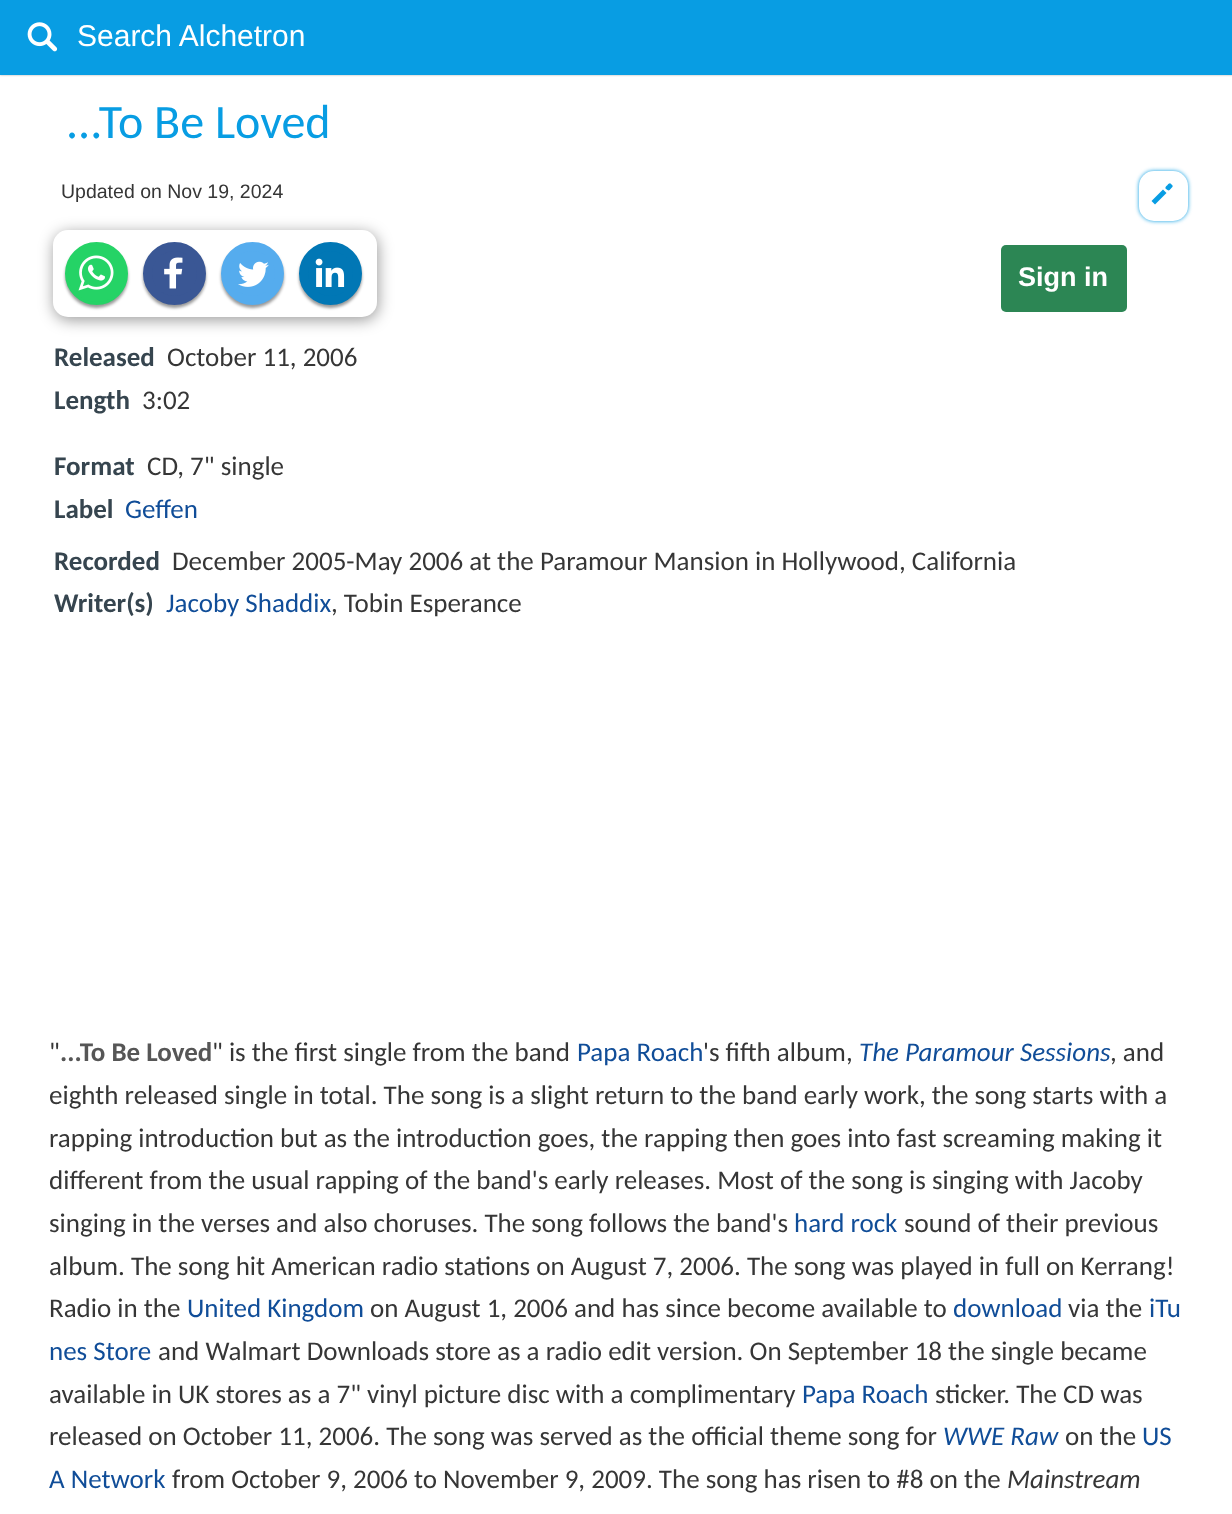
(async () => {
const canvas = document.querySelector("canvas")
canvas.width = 1232
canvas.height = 1514
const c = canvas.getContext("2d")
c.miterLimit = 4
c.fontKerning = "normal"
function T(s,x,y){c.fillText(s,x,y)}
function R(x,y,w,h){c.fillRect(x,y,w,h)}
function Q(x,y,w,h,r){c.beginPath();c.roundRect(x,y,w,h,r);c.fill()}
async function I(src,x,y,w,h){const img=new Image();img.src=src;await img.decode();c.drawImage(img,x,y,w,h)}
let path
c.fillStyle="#fff"
R(0,0,1232,1514)
c.fillStyle="#aaa"
c.filter="blur(1px)"
c.beginPath()
c.rect(0,0,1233,75)
c.fill()
c.filter="none"
c.fillStyle="#089de3"
R(0,0,1232,75)
await I("1.png",27,22,31,30)
c.font="30px Liberation Sans"
c.fillStyle="#fff"
T("Search Alchetron",77,46)
c.font="48px Carlito"
c.fillStyle="#089de3"
T("...To Be Loved",66,138)
c.filter="blur(2px)"
c.beginPath()
c.roundRect(1139,171,49,50,15)
c.fill()
c.filter="none"
c.fillStyle="#fff"
Q(1139,171,49,50,15)
c.fillStyle="#089de3"
path = new Path2D("M1163 189.5l3.5 3.5l-11.5 11.5l-3.5-3.5z")
c.fill(path)
path = new Path2D("M1171 184c2.5 2 2 2.5 0 4.5c-2 2.5-2.5 2.5-5 .5c-1.5-1.5 .5-3 1.5-4c1-1 2.5-2.5 3.5-1z")
c.fill(path)
c.font="19.5px Liberation Sans"
c.fillStyle="#363636"
T("Updated on Nov 19, 2024",61,198)
c.fillStyle="#00000066"
c.filter="blur(7.5px)"
c.beginPath()
c.roundRect(54,233,324,87,15)
c.fill()
c.filter="none"
c.fillStyle="#fff"
Q(53,230,324,87,15)
c.fillStyle="#00000066"
c.filter="blur(1.5px)"
c.beginPath()
c.roundRect(65,245,63,63,31.5)
c.fill()
c.filter="none"
c.fillStyle="#25d366"
c.beginPath()
c.arc(96.5,273.5,30,0,7)
c.fill()
c.strokeStyle="#25d366"
c.lineWidth=3
c.stroke()
await I("2.png",78,255,36,36)
c.fillStyle="#00000066"
c.filter="blur(1.5px)"
c.beginPath()
c.roundRect(143,245,63,63,31.5)
c.fill()
c.filter="none"
c.fillStyle="#3a5795"
c.beginPath()
c.arc(174.5,273.5,27,0,7)
c.fill()
c.strokeStyle="#3a5795"
c.lineWidth=9
c.stroke()
await I("3.png",164,257,19,32)
c.fillStyle="#00000066"
c.filter="blur(1.5px)"
c.beginPath()
c.roundRect(221,245,63,63,31.5)
c.fill()
c.filter="none"
c.fillStyle="#55acee"
c.beginPath()
c.arc(252.5,273.5,27,0,7)
c.fill()
c.strokeStyle="#55acee"
c.stroke()
await I("4.png",238,261,31,26)
c.fillStyle="#00000066"
c.filter="blur(1.5px)"
c.beginPath()
c.roundRect(299,245,63,63,31.5)
c.fill()
c.filter="none"
c.fillStyle="#0177b5"
c.beginPath()
c.arc(330.5,273.5,27,0,7)
c.fill()
c.strokeStyle="#0177b5"
c.stroke()
await I("5.png",315,258,30,29)
c.fillStyle="#2c8654"
Q(1001,245,126,67,5)
c.font="bold 27px Liberation Sans"
c.fillStyle="#fff"
T("Sign in",1018,286)
c.font="bold 27px Carlito"
c.fillStyle="#36454f"
T("Released",54,366)
c.font="27px Carlito"
c.fillStyle="#363636"
T("October 11, 2006",167,366)
c.font="bold 27px Carlito"
c.fillStyle="#36454f"
T("Length",54,409)
c.font="27px Carlito"
c.fillStyle="#363636"
T("3:02",142,409)
c.font="bold 27px Carlito"
c.fillStyle="#36454f"
T("Format",54,475)
c.font="27px Carlito"
c.fillStyle="#363636"
T("CD, 7\" single",147,475)
c.font="bold 27px Carlito"
c.fillStyle="#36454f"
T("Label",54,518)
c.font="27px Carlito"
c.fillStyle="#104d98"
T("Geffen",125,518)
c.font="bold 27px Carlito"
c.fillStyle="#36454f"
T("Recorded",54,570)
c.font="27px Carlito"
c.fillStyle="#363636"
T("December 2005-May 2006 at the Paramour Mansion in Hollywood, California",172,570)
c.font="bold 27px Carlito"
c.fillStyle="#36454f"
T("Writer(s)",54,612)
c.font="27px Carlito"
c.fillStyle="#104d98"
T("Jacoby Shaddix",166,612)
c.fillStyle="#363636"
T(", Tobin Esperance",331,612)
T("\"",49,1061)
c.font="bold 27px Carlito"
c.fillStyle="#565656"
T("...To Be Loved",60,1061)
c.font="27px Carlito"
c.fillStyle="#363636"
T("\" is the first single from the band",212,1061)
c.fillStyle="#104d98"
T("Papa Roach",577,1061)
c.fillStyle="#363636"
T("'s fifth album,",703,1061)
c.font="italic 27px Carlito"
c.fillStyle="#104d98"
T("The Paramour Sessions",859,1061)
c.font="27px Carlito"
c.fillStyle="#363636"
T(", and",1110,1061)
T("eighth released single in total. The song is a slight return to the band early work, the song starts with a",49,1104)
T("rapping introduction but as the introduction goes, the rapping then goes into fast screaming making it",49,1147)
T("different from the usual rapping of the band's early releases. Most of the song is singing with Jacoby",49,1189)
T("singing in the verses and also choruses. The song follows the band's",49,1232)
c.fillStyle="#104d98"
T("hard rock",794,1232)
c.fillStyle="#363636"
T("sound of their previous",904,1232)
T("album. The song hit American radio stations on August 7, 2006. The song was played in full on Kerrang!",49,1275)
T("Radio in the",49,1317)
c.fillStyle="#104d98"
T("United Kingdom",187,1317)
c.fillStyle="#363636"
T("on August 1, 2006 and has since become available to",370,1317)
c.fillStyle="#104d98"
T("download",953,1317)
c.fillStyle="#363636"
T("via the",1068,1317)
c.fillStyle="#104d98"
T("iTu",1149,1317)
T("nes Store",49,1360)
c.fillStyle="#363636"
T("and Walmart Downloads store as a radio edit version. On September 18 the single became",158,1360)
T("available in UK stores as a 7\" vinyl picture disc with a complimentary",49,1403)
c.fillStyle="#104d98"
T("Papa Roach",802,1403)
c.fillStyle="#363636"
T("sticker. The CD was",935,1403)
T("released on October 11, 2006. The song was served as the official theme song for",49,1445)
c.font="italic 27px Carlito"
c.fillStyle="#104d98"
T("WWE Raw",943,1445)
c.font="27px Carlito"
c.fillStyle="#363636"
T("on the",1065,1445)
c.fillStyle="#104d98"
T("US",1142,1445)
T("A Network",49,1488)
c.fillStyle="#363636"
T("from October 9, 2006 to November 9, 2009. The song has risen to #8 on the",172,1488)
c.font="italic 27px Carlito"
T("Mainstream",1007,1488)
})()
